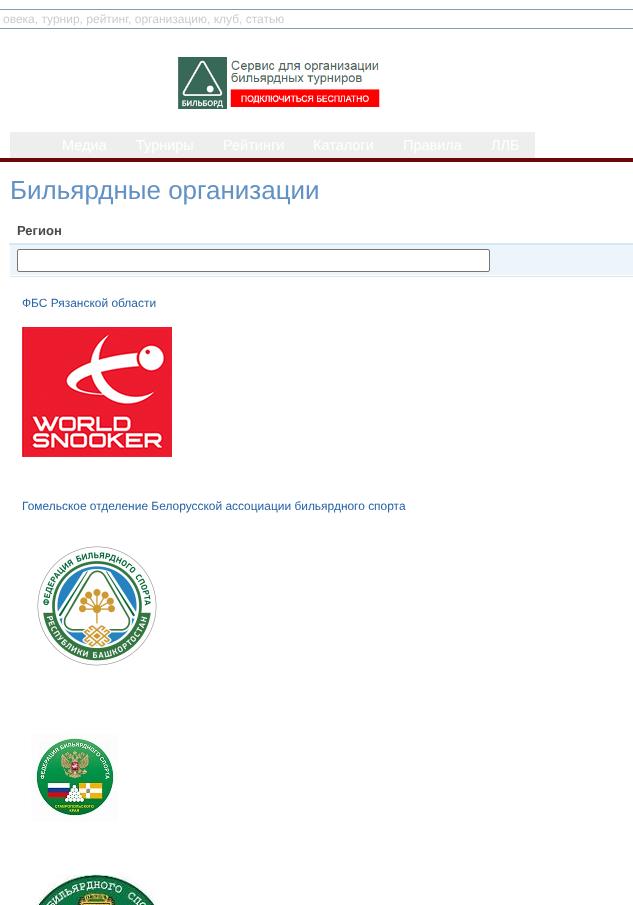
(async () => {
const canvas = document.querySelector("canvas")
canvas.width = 633
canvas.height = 905
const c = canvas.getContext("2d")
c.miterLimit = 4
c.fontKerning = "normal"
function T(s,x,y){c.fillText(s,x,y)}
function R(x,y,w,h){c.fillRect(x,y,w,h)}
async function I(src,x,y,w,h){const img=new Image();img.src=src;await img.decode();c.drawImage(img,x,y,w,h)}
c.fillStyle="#fff"
R(0,0,633,905)
c.strokeStyle="#7f9db9"
c.strokeRect(-.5,9.5,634,19)
c.font="12px Liberation Sans"
c.fillStyle="#ccc"
T("овека, турнир, рейтинг, организацию, клуб, статью",3,23)
await I("1.png",178,57,202,52)
c.fillStyle="#6a070c"
R(0,158,633,4)
c.fillStyle="#eee"
R(10,132,525,26)
c.font="14.5px Liberation Sans"
c.fillStyle="#fff"
T("Медиа",62,150)
T("Турниры",136,150)
T("Рейтинги",223,150)
T("Каталоги",313,150)
T("Правила",403,150)
T("ЛЛБ",491,150)
c.font="26px Liberation Sans"
c.fillStyle="#6191c5"
T("Бильярдные организации",10,199)
c.fillStyle="#d3e7f4"
R(9,243,624,2)
c.font="bold 13px Liberation Sans"
c.fillStyle="#494949"
T("Регион",17,235)
c.fillStyle="#edf5fa"
R(10,245,623,30)
c.fillStyle="#d3e7f4"
R(10,276,623,1)
c.fillStyle="#fff"
c.beginPath()
c.roundRect(17.5,249.5,472,22,1.5)
c.fill()
c.strokeStyle="#767676"
c.stroke()
c.font="11.95px Liberation Sans"
c.fillStyle="#2763a5"
T("ФБС Рязанской области",22,307)
await I("2.png",22,327,150,130)
T("Гомельское отделение Белорусской ассоциации бильярдного спорта",22,510)
await I("3.png",37,546,120,120)
await I("4.png",30,734,88,88)
await I("5.png",33,874,124,31)
})()
